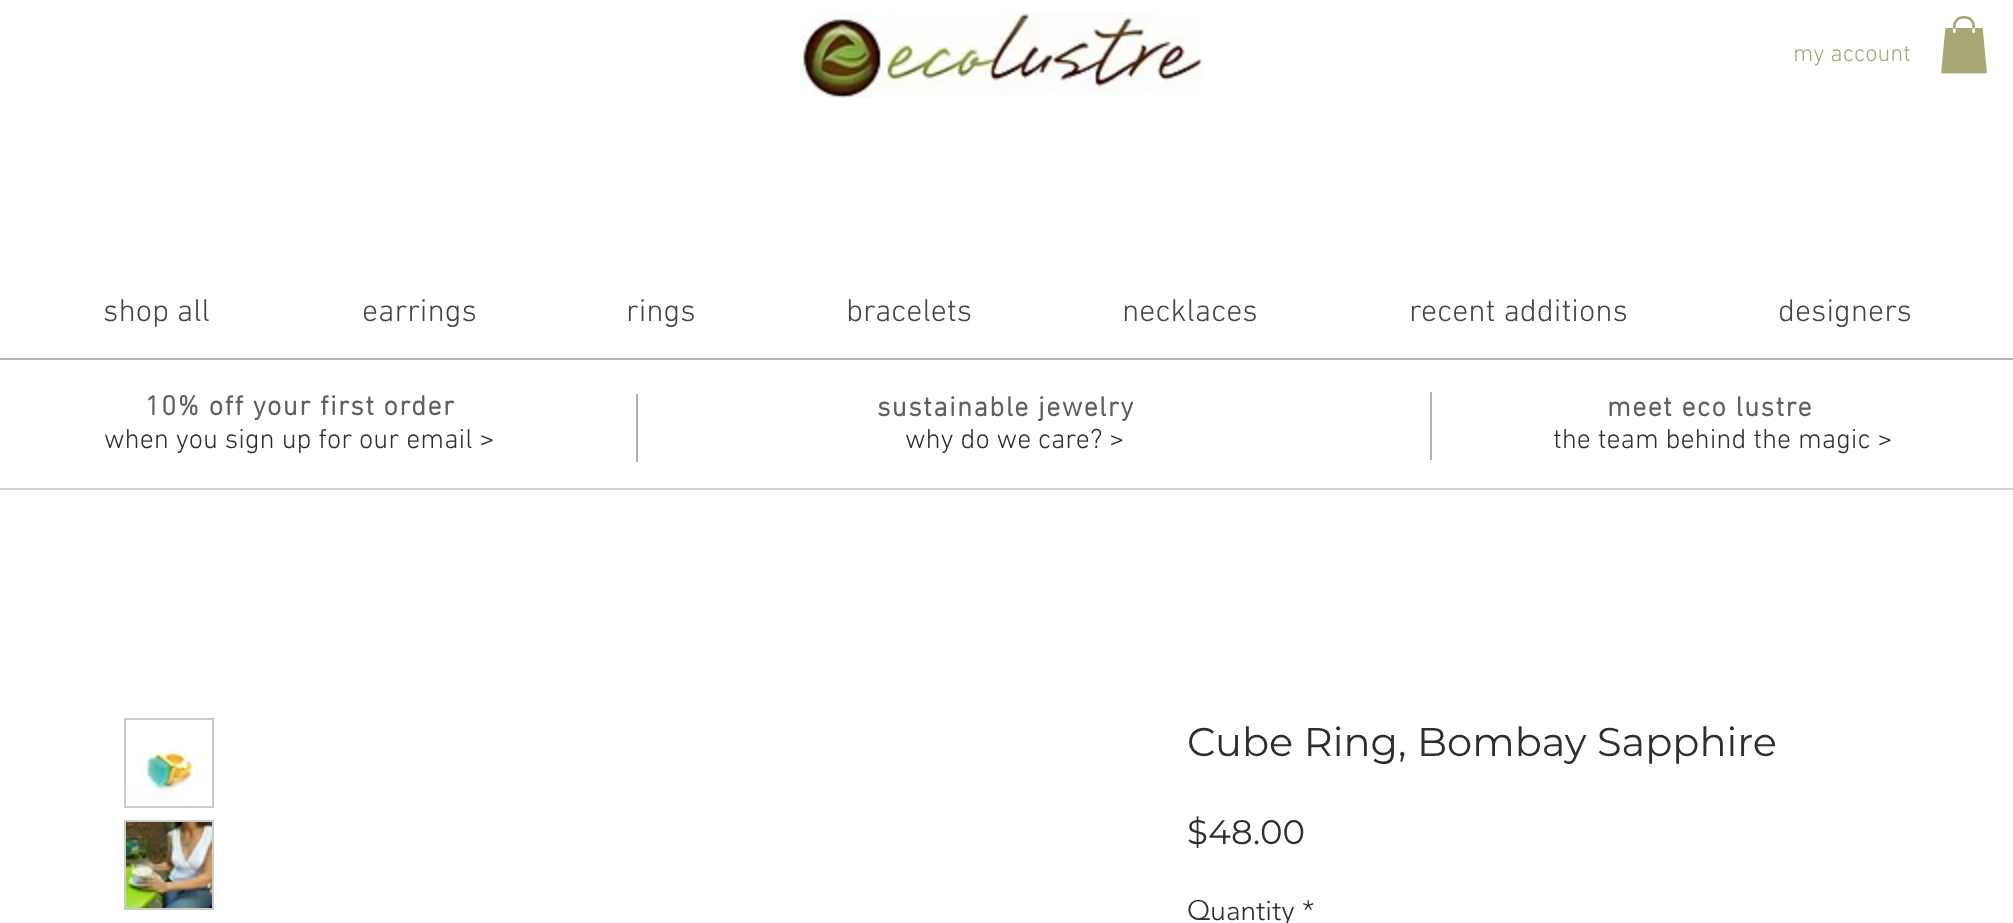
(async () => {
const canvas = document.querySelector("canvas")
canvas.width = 2013
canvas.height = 923
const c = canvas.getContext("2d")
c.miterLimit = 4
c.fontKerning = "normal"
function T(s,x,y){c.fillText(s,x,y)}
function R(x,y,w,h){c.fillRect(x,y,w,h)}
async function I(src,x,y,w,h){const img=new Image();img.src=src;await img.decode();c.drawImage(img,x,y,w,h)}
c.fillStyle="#fff"
R(0,0,2013,923)
await I("1.png",800,12,404,86)
c.font="300 24px 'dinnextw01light'"
c.fillStyle="#a8a877"
T("my account",1793,61)
await I("2.png",1941,16,46,58)
c.font="300 32px 'dinnextw01light'"
c.fillStyle="#444"
T("shop all",103,321)
T("earrings",362,321)
T("rings",626,321)
T("bracelets",846,321)
T("necklaces",1122,321)
T("recent additions",1409,321)
T("designers",1778,321)
c.fillStyle="#b3b3b2"
R(0,358,2013,2)
c.letterSpacing="1.4px"
c.font="bold 28px 'dinnextw01light'"
c.fillStyle="#605e5e"
T("10% off your first order",145,415)
c.fillStyle="#b3b3b2"
R(636,394,2,68)
c.fillStyle="#605e5e"
T("sustainable jewelry",877,416)
c.fillStyle="#b3b3b2"
R(1430,392,2,68)
c.fillStyle="#605e5e"
T("meet eco lustre",1607,416)
c.letterSpacing="0px"
c.font="300 28px 'dinnextw01light'"
c.fillStyle="#2f2e2e"
T("when you sign up for our email >",104,448)
T("why do we care? >",905,448)
T("the team behind the magic >",1553,448)
c.fillStyle="#d0d0cf"
R(0,488,2013,2)
c.fillStyle="#ccc"
R(124,718,90,90)
await I("3.png",126,720,86,86)
R(124,820,90,90)
await I("4.png",126,822,86,86)
c.font="40px Montserrat"
c.fillStyle="#2f2e2e"
T("Cube Ring, Bombay Sapphire",1187,756)
c.font="34px Montserrat"
T("$48.00",1187,844)
c.font="300 28px 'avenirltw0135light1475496'"
T("Quantity",1187,920)
T("*",1302,920)
})()
